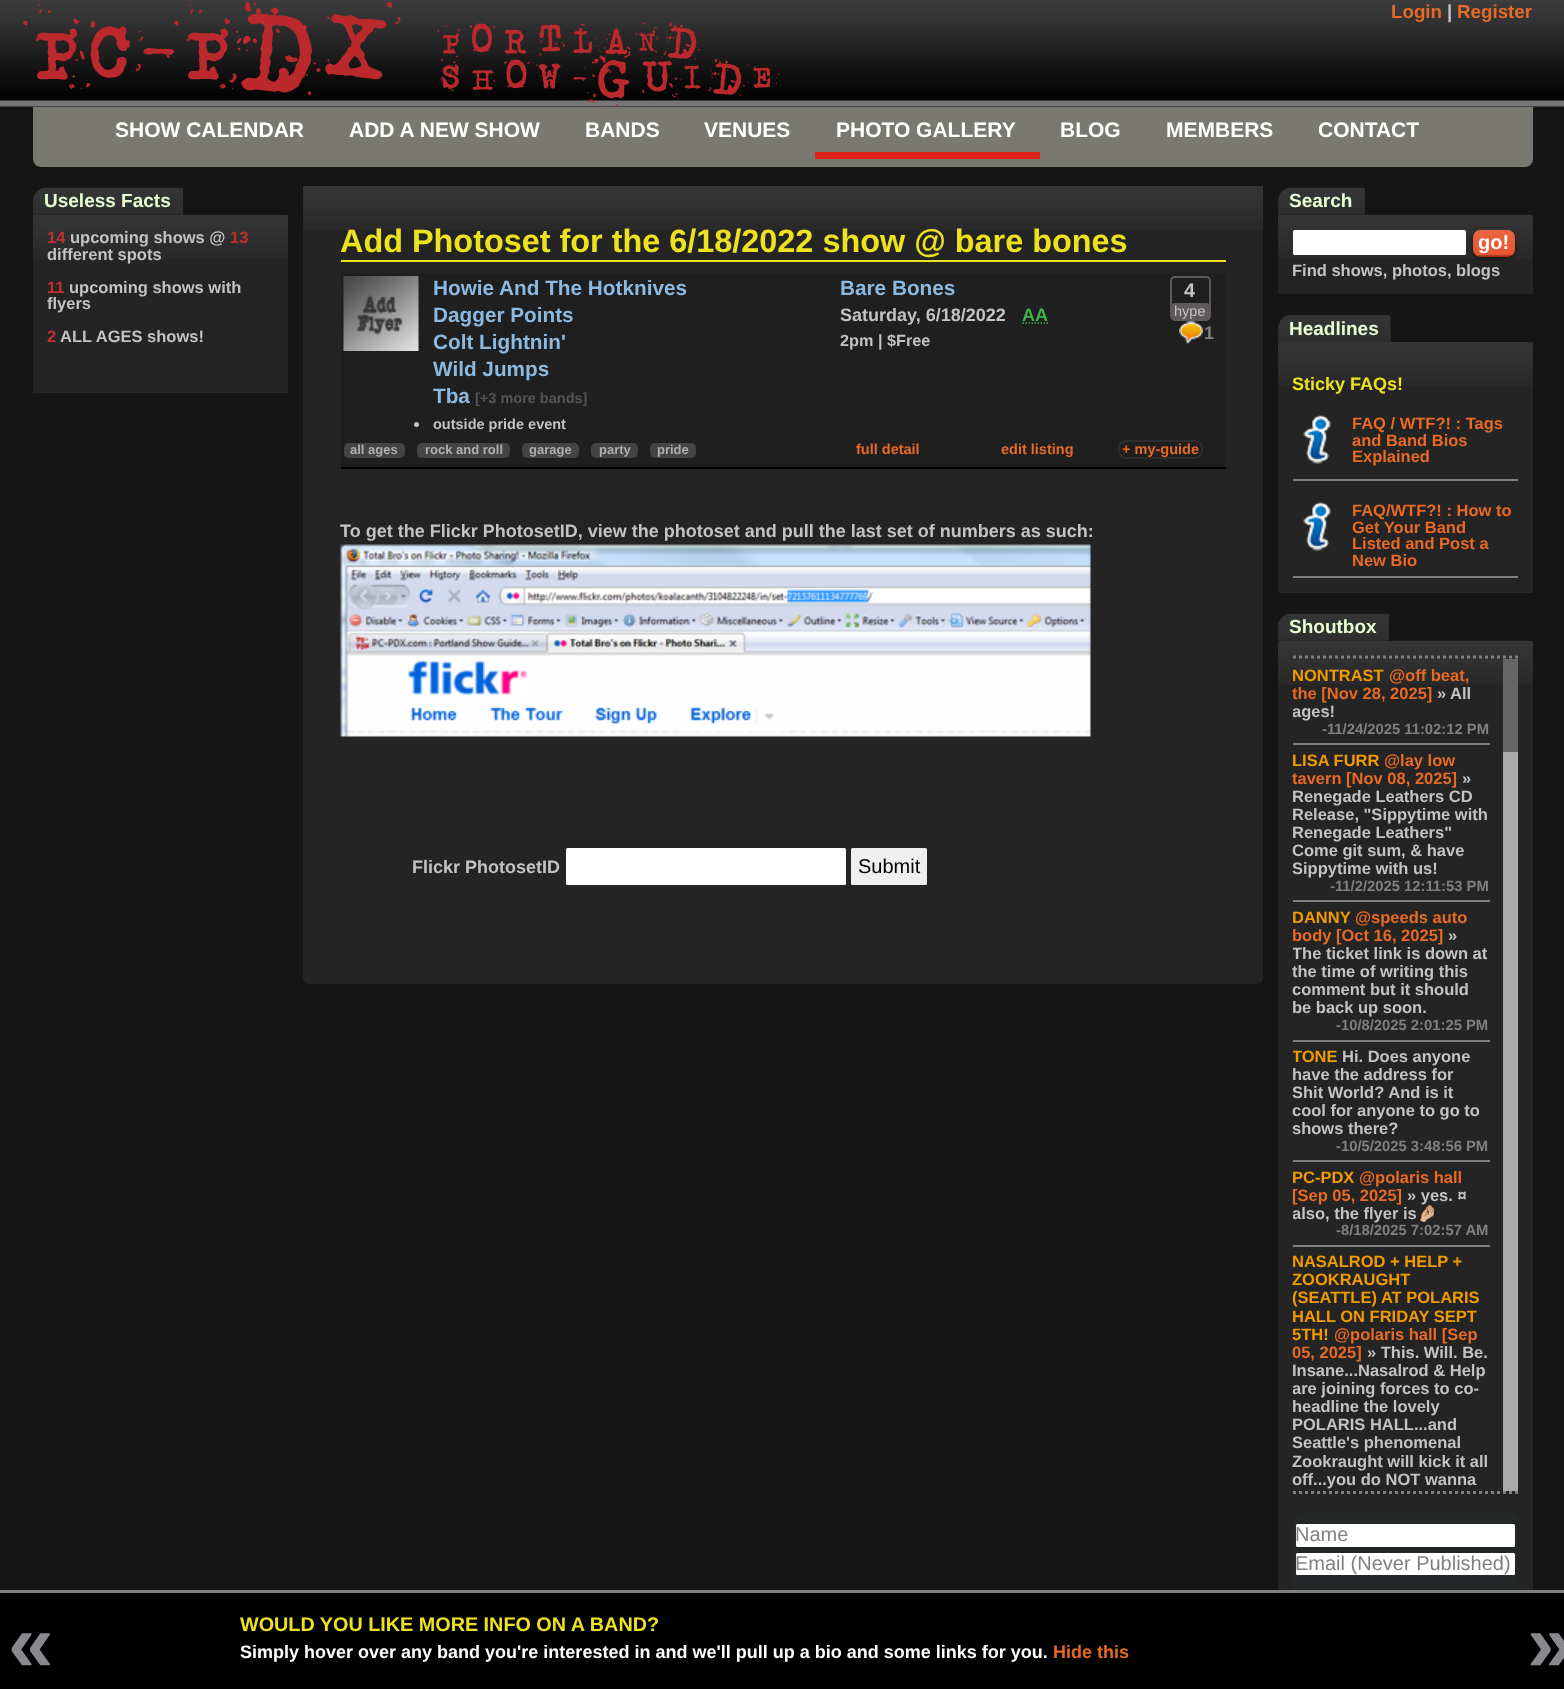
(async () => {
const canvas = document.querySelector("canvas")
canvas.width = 1564
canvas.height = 1689
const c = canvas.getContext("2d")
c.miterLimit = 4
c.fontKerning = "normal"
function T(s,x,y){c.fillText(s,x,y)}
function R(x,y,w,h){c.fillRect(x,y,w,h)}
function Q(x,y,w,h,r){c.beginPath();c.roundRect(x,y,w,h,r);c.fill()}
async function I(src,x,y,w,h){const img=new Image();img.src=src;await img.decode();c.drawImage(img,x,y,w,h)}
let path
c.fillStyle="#151515"
R(0,0,1564,1689)
await I("1.png",0,0,1564,107)
c.letterSpacing="-18px"
c.font="90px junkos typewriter"
c.fillStyle="#bb292d"
T("P",32,78)
T("C",87,78)
T("-",141,78)
T("P",183,78)
T("D",238,78)
T("X",321,78)
c.letterSpacing="0px"
c.font="36px junkos typewriter"
T("P O R T L A N D",441,53)
T("S H O W - G U I D E",441,89)
c.font="bold 18.75px Liberation Sans"
c.fillStyle="#e86a24"
T("Login",1391,18)
c.fillStyle="#c4c2c2"
T("|",1447,18)
c.fillStyle="#e86a24"
T("Register",1457,18)
c.fillStyle="#797971"
c.beginPath()
c.roundRect(33,107,1500,60,[0,0,8,8])
c.fill()
c.font="bold 21px Liberation Sans"
c.fillStyle="#fff"
T("SHOW CALENDAR",115,137)
T("ADD A NEW SHOW",349,137)
T("BANDS",585,137)
T("VENUES",704,137)
T("PHOTO GALLERY",836,137)
T("BLOG",1060,137)
T("MEMBERS",1166,137)
c.save()
c.beginPath()
c.rect(1319,117,100,45)
c.clip()
T("CONTACT",1318,137)
c.restore()
c.fillStyle="#e0201b"
R(815,152,225,7)
c.fillStyle="#242424"
c.beginPath()
c.roundRect(33,188,150,27,[13.5,2,0,0])
c.fill()
await I("2.png",33,187,150,27)
c.font="bold 19px Liberation Sans"
c.fillStyle="#e6ffd4"
T("Useless Facts",44,207)
c.fillStyle="#242424"
Q(33,215,255,178,1.5)
await I("3.png",33,214,255,45)
c.font="bold 16.5px Liberation Sans"
c.fillStyle="#c2302c"
T("14",47,243)
c.fillStyle="#c4c2c2"
T("upcoming shows @",70,243)
c.fillStyle="#c2302c"
T("13",230,243)
c.fillStyle="#c4c2c2"
T("different spots",47,260)
c.fillStyle="#c2302c"
T("11",47,293)
c.fillStyle="#c4c2c2"
T("upcoming shows with",69,293)
T("flyers",47,309)
c.fillStyle="#c2302c"
T("2",47,342)
c.fillStyle="#c4c2c2"
T("ALL AGES shows!",60,342)
c.fillStyle="#242424"
Q(303,186,960,798,6)
await I("4.png",303,186,960,44)
c.fillStyle="#ede220"
R(341,260,885,2)
c.font="bold 32.4px Liberation Sans"
T("Add Photoset for the 6/18/2022 show @ bare bones",340,252)
c.fillStyle="#1f1f1f"
R(341,273,885,194)
c.fillStyle="#000"
R(341,467,885,2)
await I("5.png",343,276,76,75)
c.font="bold 20.75px Liberation Sans"
c.fillStyle="#8bb9e0"
T("Howie And The Hotknives",433,295)
T("Dagger Points",433,322)
T("Colt Lightnin'",433,349)
T("Wild Jumps",433,376)
T("Tba",433,403)
c.font="bold 14.5px Liberation Sans"
c.fillStyle="#555"
T("[+3 more bands]",475,403)
c.fillStyle="#c4c2c2"
c.beginPath()
c.arc(416.5,424.5,2.5,0,7)
c.fill()
T("outside pride event",433,429)
c.font="bold 20.75px Liberation Sans"
c.fillStyle="#8bb9e0"
T("Bare Bones",840,295)
c.font="bold 18px Liberation Sans"
c.fillStyle="#c4c2c2"
T("Saturday, 6/18/2022",840,321)
c.fillStyle="#3eb34c"
T("AA",1022,321)
path = new Path2D("M1022.5 323h26")
c.strokeStyle="#3eb34c"
c.lineWidth=1.5
c.setLineDash([1.5,1.5])
c.stroke(path)
c.font="bold 16.25px Liberation Sans"
c.fillStyle="#c4c2c2"
T("2pm | $Free",840,346)
c.beginPath()
c.roundRect(1171,277,39,43,4)
c.strokeStyle="#5e595a"
c.lineWidth=2
c.setLineDash([])
c.stroke()
c.font="bold 19.8px Liberation Sans"
T("4",1184,297)
c.fillStyle="#5e595a"
c.beginPath()
c.roundRect(1172,303,37,17,[1.5,1.5,3,3])
c.fill()
c.font="14.5px Liberation Sans"
c.fillStyle="#c4c2c2"
T("hype",1174,316)
await I("6.png",1179,321,24,23)
c.font="bold 18px Liberation Sans"
c.fillStyle="#808080"
T("1",1204,339)
c.fillStyle="#444"
Q(344,443,61,15,5)
c.font="bold 13px Liberation Sans"
c.fillStyle="#b0aeac"
T("all ages",350,454)
c.fillStyle="#444"
Q(417,443,93,15,5)
c.fillStyle="#b0aeac"
T("rock and roll",425,454)
c.fillStyle="#444"
Q(522,443,57,15,5)
c.fillStyle="#b0aeac"
T("garage",529,454)
c.fillStyle="#444"
Q(591,443,47,15,5)
c.fillStyle="#b0aeac"
T("party",599,454)
c.fillStyle="#444"
Q(650,443,46,15,5)
c.fillStyle="#b0aeac"
T("pride",657,454)
c.font="bold 14.5px Liberation Sans"
c.fillStyle="#e86a24"
T("full detail",856,454)
T("edit listing",1001,454)
c.beginPath()
c.roundRect(1119,441,83,17,7)
c.strokeStyle="#2d2d2d"
c.stroke()
T("+ my-guide",1122,454)
c.font="bold 18px Liberation Sans"
c.fillStyle="#c4c2c2"
T("To get the Flickr PhotosetID, view the photoset and pull the last set of numbers as such:",340,537)
await I("7.png",340,544,751,193)
T("Flickr PhotosetID",412,873)
c.fillStyle="#fff"
Q(566,848,280,37,1.5)
c.fillStyle="#efefef"
Q(851,848,76,37,1.5)
c.font="20px Liberation Sans"
c.fillStyle="#000"
T("Submit",858,873)
c.fillStyle="#242424"
c.beginPath()
c.roundRect(1278,188,87,27,[13.5,2,0,0])
c.fill()
await I("8.png",1278,187,87,27)
c.font="bold 19px Liberation Sans"
c.fillStyle="#e6ffd4"
T("Search",1289,207)
c.fillStyle="#242424"
Q(1278,215,255,79,1.5)
await I("9.png",1278,214,255,45)
c.fillStyle="#fff"
Q(1293,230,173,25,1.5)
c.fillStyle="#00000080"
c.filter="blur(2px)"
c.beginPath()
c.roundRect(1473,231,42,27,8)
c.fill()
c.filter="none"
c.fillStyle="#e33100"
Q(1473,230,42,27,8)
await I("10.png",1473,229,42,28)
c.fillStyle="#00000040"
R(1478,255,34,2)
c.font="bold 20px Liberation Sans"
c.fillStyle="#fff"
T("go!",1478,249)
c.font="bold 16.5px Liberation Sans"
c.fillStyle="#c4c2c2"
T("Find shows, photos, blogs",1292,276)
c.fillStyle="#242424"
c.beginPath()
c.roundRect(1278,315,113,27,[13.5,2,0,0])
c.fill()
await I("11.png",1278,315,113,27)
c.font="bold 19px Liberation Sans"
c.fillStyle="#e6ffd4"
T("Headlines",1289,335)
c.fillStyle="#242424"
Q(1278,342,255,251,1.5)
await I("12.png",1278,342,255,44)
c.font="bold 18px Liberation Sans"
c.fillStyle="#ede220"
T("Sticky FAQs!",1292,390)
c.fillStyle="#808080"
R(1293,479,225,2)
await I("13.png",1303,415,28,49)
c.font="bold 16.5px Liberation Sans"
c.fillStyle="#e86a24"
T("FAQ / WTF?! : Tags",1352,429)
T("and Band Bios",1352,446)
T("Explained",1352,462)
c.fillStyle="#808080"
R(1293,576,225,2)
await I("13.png",1303,502,28,49)
c.fillStyle="#e86a24"
T("FAQ/WTF?! : How to",1352,516)
T("Get Your Band",1352,533)
T("Listed and Post a",1352,549)
T("New Bio",1352,566)
c.fillStyle="#242424"
c.beginPath()
c.roundRect(1278,614,111,27,[13.5,2,0,0])
c.fill()
await I("14.png",1278,613,111,27)
c.font="bold 19px Liberation Sans"
c.fillStyle="#e6ffd4"
T("Shoutbox",1289,633)
c.fillStyle="#242424"
Q(1278,641,255,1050,1.5)
await I("15.png",1278,640,255,45)
path = new Path2D("M1293 657h225")
c.strokeStyle="#808080"
c.lineWidth=3
c.setLineDash([3,3])
c.stroke(path)
c.fillStyle="#808080"
R(1293,743,197,2)
c.font="bold 16.5px Liberation Sans"
c.fillStyle="#f29b01"
T("NONTRAST",1292,681)
c.fillStyle="#e86a24"
T("@off beat,",1389,681)
T("the [Nov 28, 2025]",1292,699)
c.fillStyle="#c4c2c2"
T("»",1437,699)
T("All",1450,699)
c.save()
c.beginPath()
c.rect(1293,659,225,832)
c.clip()
T("ages!",1292,717)
c.restore()
c.font="bold 14.8px Liberation Sans"
c.fillStyle="#808080"
T("-11/24/2025 11:02:12 PM",1322,734)
R(1293,900,197,2)
c.font="bold 16.5px Liberation Sans"
c.fillStyle="#f29b01"
T("LISA FURR",1292,766)
c.fillStyle="#e86a24"
T("@lay low",1384,766)
T("tavern [Nov 08, 2025]",1292,784)
c.fillStyle="#c4c2c2"
T("»",1462,784)
T("Renegade Leathers CD",1292,802)
T("Release, \"Sippytime with",1292,820)
T("Renegade Leathers\"",1292,838)
T("Come git sum, & have",1292,856)
T("Sippytime with us!",1292,874)
c.font="bold 14.8px Liberation Sans"
c.fillStyle="#808080"
T("-11/2/2025 12:11:53 PM",1330,891)
R(1293,1040,197,2)
c.font="bold 16.5px Liberation Sans"
c.fillStyle="#f29b01"
T("DANNY",1292,923)
c.fillStyle="#e86a24"
T("@speeds auto",1355,923)
T("body [Oct 16, 2025]",1292,941)
c.fillStyle="#c4c2c2"
T("»",1448,941)
c.save()
c.beginPath()
c.rect(1293,659,225,832)
c.clip()
T("The ticket link is down at",1292,959)
c.restore()
T("the time of writing this",1292,977)
T("comment but it should",1292,995)
T("be back up soon.",1292,1013)
c.font="bold 14.8px Liberation Sans"
c.fillStyle="#808080"
T("-10/8/2025 2:01:25 PM",1336,1030)
R(1293,1160,197,2)
c.save()
c.beginPath()
c.rect(1293,659,225,832)
c.clip()
c.font="bold 16.5px Liberation Sans"
c.fillStyle="#f29b01"
T("TONE",1292,1062)
c.restore()
c.font="bold 16.5px Liberation Sans"
c.fillStyle="#c4c2c2"
T("Hi. Does anyone",1342,1062)
T("have the address for",1292,1080)
T("Shit World? And is it",1292,1098)
T("cool for anyone to go to",1292,1116)
T("shows there?",1292,1134)
c.font="bold 14.8px Liberation Sans"
c.fillStyle="#808080"
T("-10/5/2025 3:48:56 PM",1336,1151)
R(1293,1245,197,2)
c.font="bold 16.5px Liberation Sans"
c.fillStyle="#f29b01"
T("PC-PDX",1292,1183)
c.fillStyle="#e86a24"
T("@polaris hall",1359,1183)
T("[Sep 05, 2025]",1292,1201)
c.fillStyle="#c4c2c2"
T("» yes. ¤",1407,1201)
c.save()
c.beginPath()
c.rect(1293,659,225,832)
c.clip()
T("also, the flyer is",1292,1219)
c.restore()
c.font="bold 16.5px Noto Color Emoji"
T("🤌🏼",1417,1219)
c.font="bold 14.8px Liberation Sans"
c.fillStyle="#808080"
T("-8/18/2025 7:02:57 AM",1336,1235)
c.font="bold 16.5px Liberation Sans"
c.fillStyle="#f29b01"
T("NASALROD + HELP +",1292,1267)
T("ZOOKRAUGHT",1292,1285)
T("(SEATTLE) AT POLARIS",1292,1303)
T("HALL ON FRIDAY SEPT",1292,1322)
T("5TH!",1292,1340)
c.fillStyle="#e86a24"
T("@polaris hall [Sep",1334,1340)
T("05, 2025]",1292,1358)
c.fillStyle="#c4c2c2"
T("» This. Will. Be.",1367,1358)
T("Insane...Nasalrod & Help",1292,1376)
c.save()
c.beginPath()
c.rect(1293,659,225,832)
c.clip()
T("are joining forces to co-",1292,1394)
c.restore()
T("headline the lovely",1292,1412)
T("POLARIS HALL...and",1292,1430)
T("Seattle's phenomenal",1292,1448)
T("Zookraught will kick it all",1292,1467)
T("off...you do NOT wanna",1292,1485)
c.fillStyle="#aaa"
R(1503,752,15,739)
c.fillStyle="#666"
R(1503,659,15,93)
path = new Path2D("M1293 1492.5h225")
c.stroke(path)
c.fillStyle="#3b3537"
c.beginPath()
c.roundRect(1294,1515,223,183,7)
c.fill()
c.strokeStyle="#242727"
c.lineWidth=2
c.setLineDash([])
c.stroke()
Q(1295,1515,222,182,8)
c.fillStyle="#242727"
path = new Path2D("M1303 1515h206c4 0 8 4 8 8v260c0 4-4 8-8 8h-206c-4 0-8-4-8-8v-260c0-4 4-8 8-8z")
c.fill(path)
c.fillStyle="#fff"
Q(1296,1524,219,23,1.5)
c.font="20px Liberation Sans"
c.fillStyle="#808080"
T("Name",1295,1541)
c.fillStyle="#fff"
Q(1296,1553,219,22,1.5)
c.fillStyle="#808080"
T("Email (Never Published)",1295,1570)
c.fillStyle="#000"
R(0,1593,1564,96)
c.fillStyle="#808080"
R(0,1590,1564,3)
c.font="bold 82px Liberation Sans"
c.fillStyle="#88898c"
T("«",8,1671)
c.font="bold 19.8px Liberation Sans"
c.fillStyle="#ede220"
T("WOULD YOU LIKE MORE INFO ON A BAND?",240,1631)
c.font="bold 18px Liberation Sans"
c.fillStyle="#fff"
T("Simply hover over any band you're interested in and we'll pull up a bio and some links for you.",240,1658)
c.fillStyle="#e86a24"
T("Hide this",1053,1658)
c.font="bold 82px Liberation Sans"
c.fillStyle="#88898c"
T("»",1527,1671)
})()
